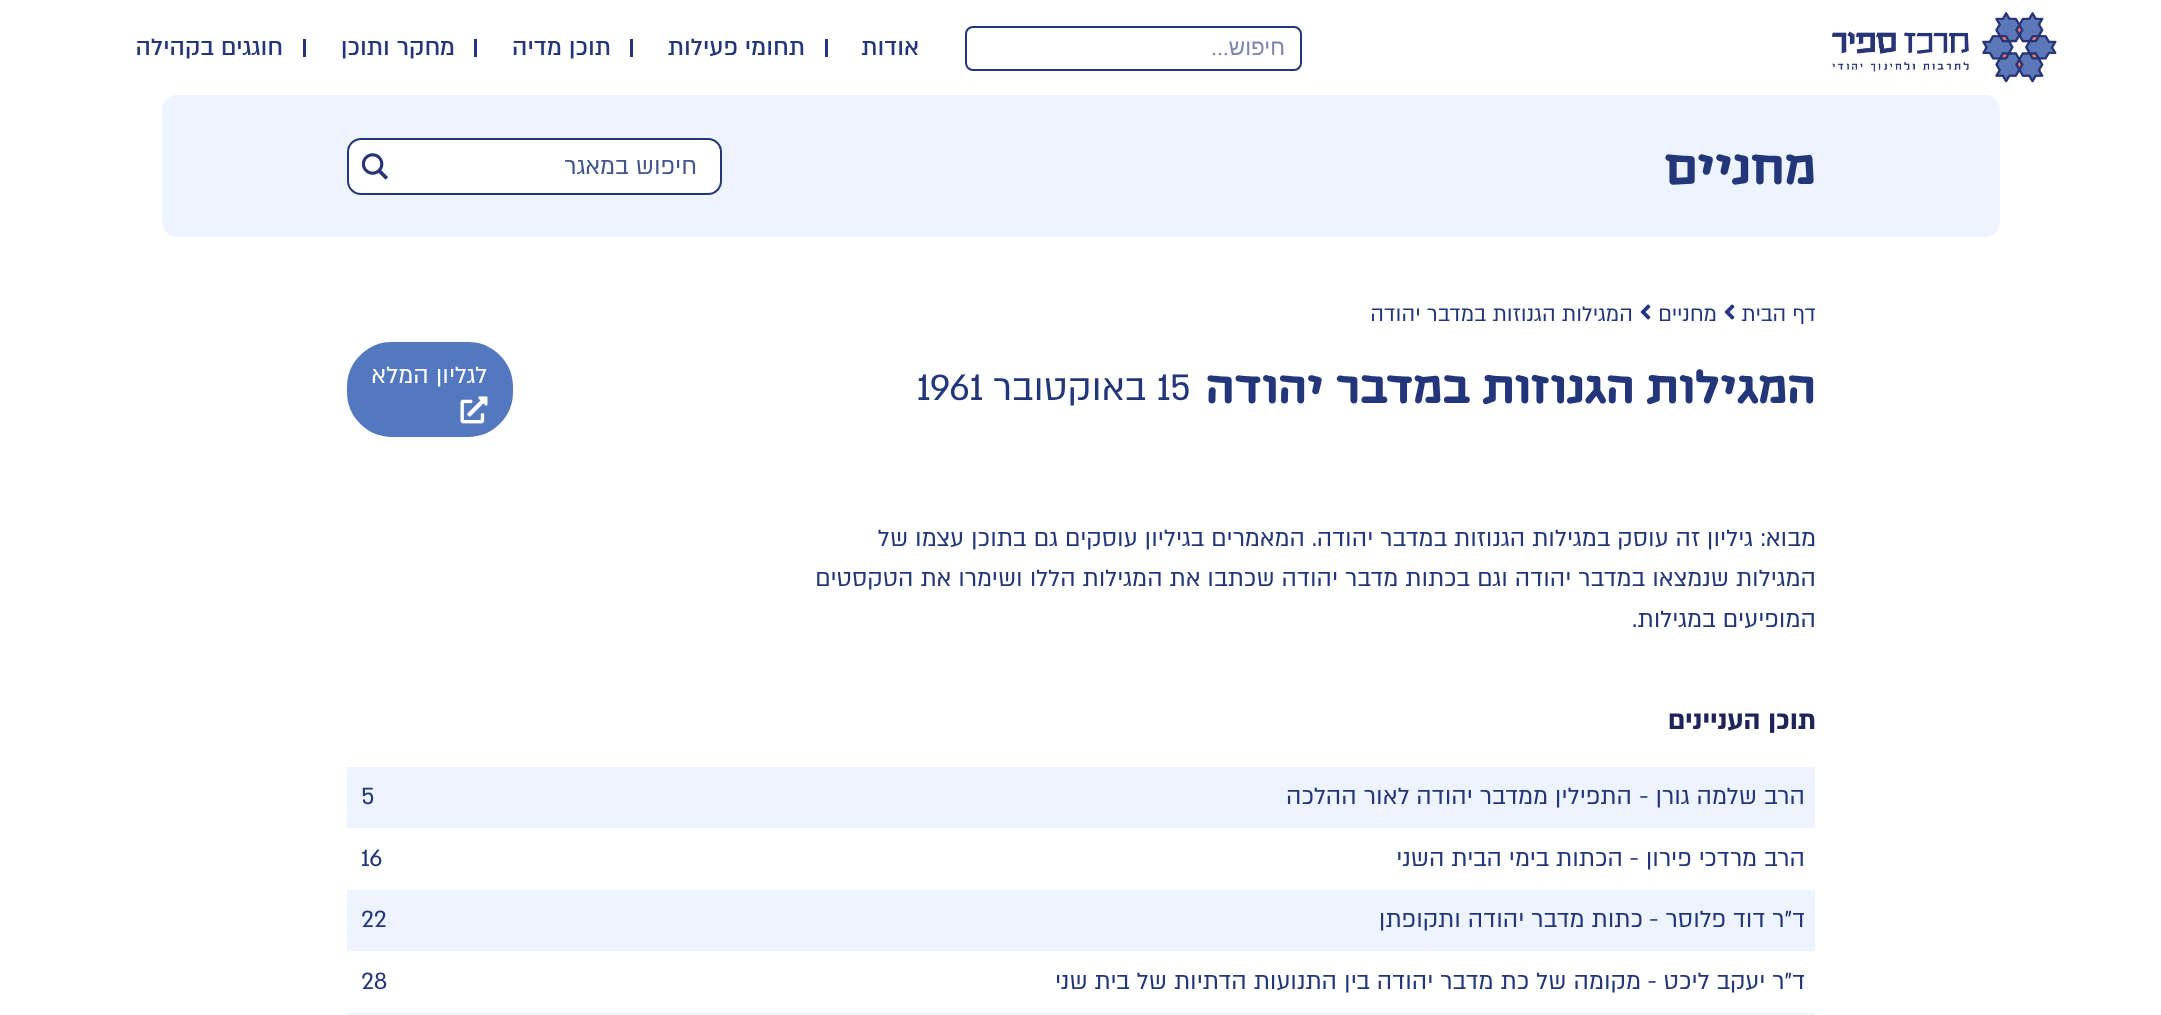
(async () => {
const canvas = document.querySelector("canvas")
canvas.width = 2161
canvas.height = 1015
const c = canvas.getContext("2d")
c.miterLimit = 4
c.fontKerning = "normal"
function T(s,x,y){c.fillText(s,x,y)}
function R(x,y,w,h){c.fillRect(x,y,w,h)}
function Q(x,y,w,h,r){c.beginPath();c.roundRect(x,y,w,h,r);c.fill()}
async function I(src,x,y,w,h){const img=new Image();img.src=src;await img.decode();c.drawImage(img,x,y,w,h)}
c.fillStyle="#fff"
R(0,0,2161,1015)
await I("1.png",1831,12,226,71)
c.beginPath()
c.roundRect(966,27,335,43,7)
c.strokeStyle="#23367a"
c.lineWidth=2
c.stroke()
c.direction="rtl"
c.font="22.5px Liberation Sans"
c.fillStyle="#7b86af"
T("חיפוש",1285,55)
c.font="22.5px Roboto"
T("...",1229,55)
c.font="500 27px 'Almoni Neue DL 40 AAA'"
c.fillStyle="#23367a"
T("אודות",919,55)
R(825,39,3,18)
T("תחומי פעילות",805,55)
R(630,39,3,18)
T("תוכן מדיה",611,55)
R(474,39,3,18)
T("מחקר ותוכן",455,55)
R(303,39,3,18)
T("חוגגים בקהילה",283,55)
c.fillStyle="#edf3ff"
Q(162,95,1838,142,15)
c.font="bold 48px 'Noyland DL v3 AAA'"
c.fillStyle="#23367a"
T("מחניים",1816,184)
c.fillStyle="#fff"
c.beginPath()
c.roundRect(348,139,373,55,13)
c.fill()
c.stroke()
c.font="27px 'Almoni Neue DL 40 AAA'"
c.fillStyle="#44548e"
T("חיפוש במאגר",697,174)
await I("2.png",361,153,28,27)
c.font="24px 'Almoni Neue DL 40 AAA'"
c.fillStyle="#23367a"
T("דף הבית",1816,321)
await I("3.png",1724,304,11,16)
T("מחניים",1717,321)
await I("3.png",1640,304,11,16)
T("המגילות הגנוזות במדבר יהודה",1633,321)
c.font="bold 45px 'Noyland DL v3 AAA'"
T("המגילות הגנוזות במדבר יהודה",1816,403)
c.direction="ltr"
c.font="42px 'Almoni Neue DL 40 AAA'"
T("15",1157,400)
c.direction="rtl"
T("באוקטובר",1146,400)
c.direction="ltr"
T("1961",917,400)
c.fillStyle="#5478bf"
c.beginPath()
c.roundRect(348,343,164,93,44)
c.fill()
c.strokeStyle="#5478bf"
c.stroke()
c.direction="rtl"
c.font="27px 'Almoni Neue DL 40 AAA'"
c.fillStyle="#fff"
T("לגליון המלא",487,383)
await I("4.png",460,396,28,28)
c.fillStyle="#23367a"
T("מבוא:",1816,546)
T("גיליון זה עוסק במגילות הגנוזות במדבר יהודה. המאמרים בגיליון עוסקים גם בתוכן עצמו של",1753,546)
T("המגילות שנמצאו במדבר יהודה וגם בכתות מדבר יהודה שכתבו את המגילות הללו ושימרו את הטקסטים",1816,586)
T("המופיעים במגילות.",1816,627)
c.font="bold 30px 'Almoni Neue DL 40 AAA'"
c.fillStyle="#1e235a"
T("תוכן העניינים",1816,729)
c.fillStyle="#edf3ff"
R(347,767,1468,61)
c.font="27px 'Almoni Neue DL 40 AAA'"
c.fillStyle="#23367a"
T("הרב שלמה גורן -",1805,804)
T("התפילין ממדבר יהודה לאור ההלכה",1632,804)
c.direction="ltr"
T("5",361,804)
c.direction="rtl"
T("הרב מרדכי פירון -",1805,866)
T("הכתות בימי הבית השני",1623,866)
c.direction="ltr"
T("16",361,866)
c.fillStyle="#edf3ff"
R(347,890,1468,61)
c.direction="rtl"
c.fillStyle="#23367a"
T("ד\"ר דוד פלוסר -",1805,927)
T("כתות מדבר יהודה ותקופתן",1643,927)
c.direction="ltr"
T("22",361,927)
c.direction="rtl"
T("ד\"ר יעקב ליכט -",1805,989)
T("מקומה של כת מדבר יהודה בין התנועות הדתיות של בית שני",1641,989)
c.direction="ltr"
T("28",361,989)
c.fillStyle="#edf3ff"
R(347,1013,1468,2)
})()
